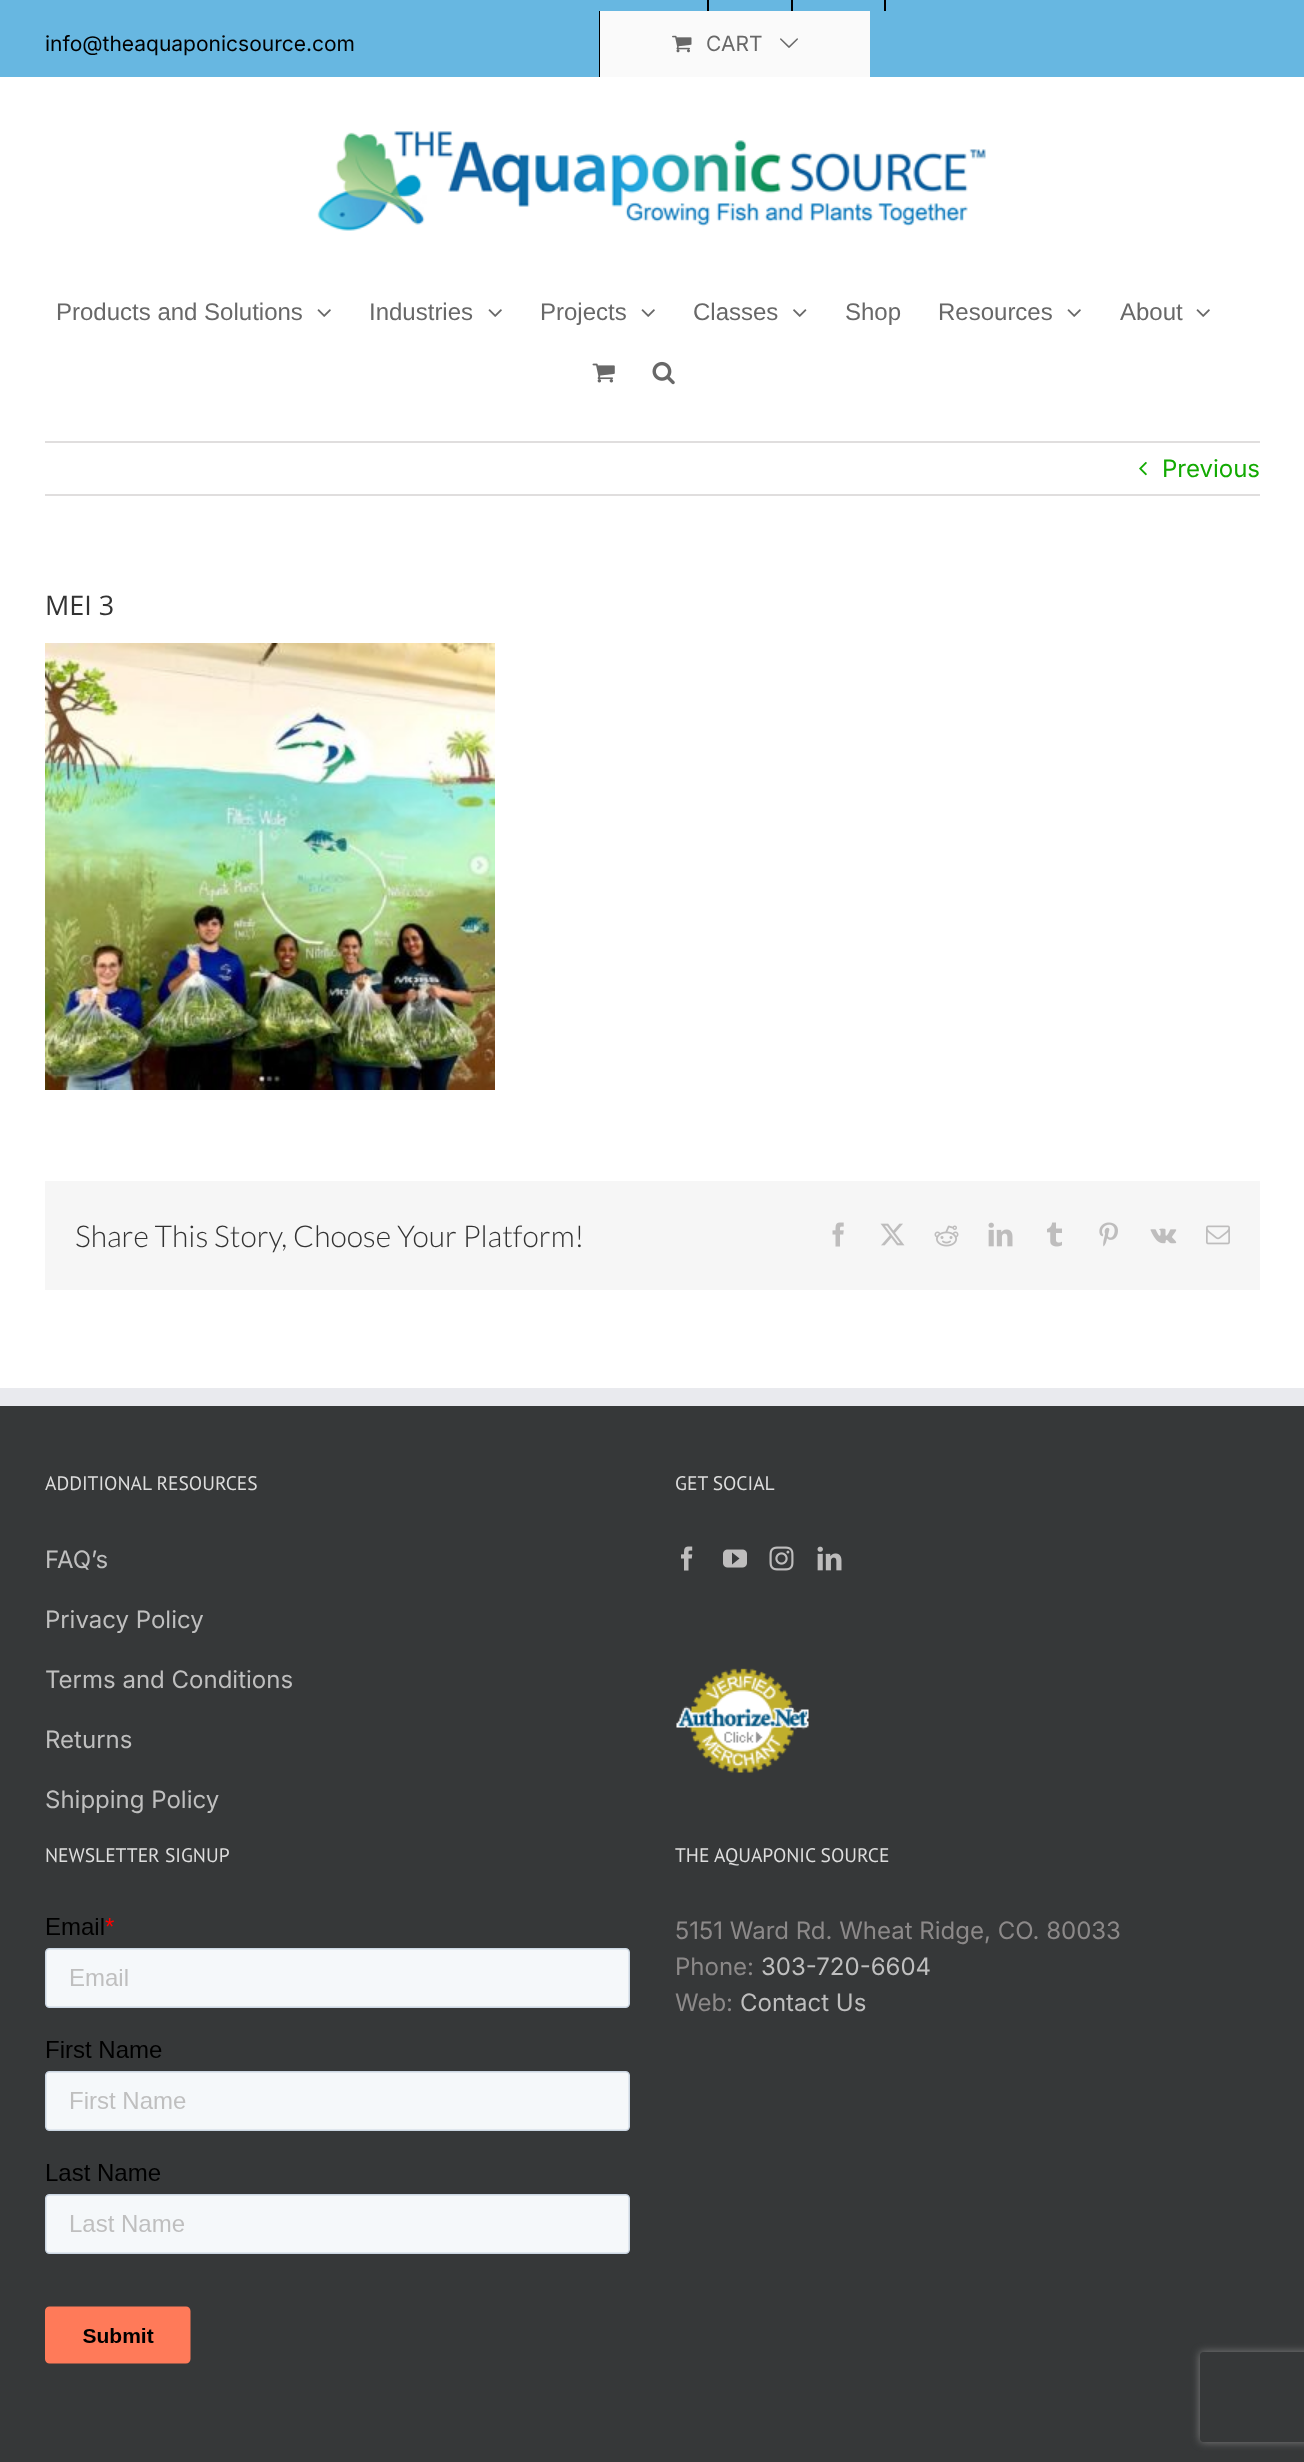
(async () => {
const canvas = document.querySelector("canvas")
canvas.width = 1304
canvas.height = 2462
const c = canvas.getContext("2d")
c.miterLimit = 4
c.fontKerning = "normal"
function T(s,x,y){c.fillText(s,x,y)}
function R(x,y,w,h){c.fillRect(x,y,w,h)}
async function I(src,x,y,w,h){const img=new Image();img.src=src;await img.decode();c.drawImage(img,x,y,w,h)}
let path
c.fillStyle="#fff"
R(0,0,1304,2462)
c.fillStyle="#67b7e1"
R(0,0,1304,77)
c.font="21px Inter"
c.fillStyle="#000"
T("info@theaquaponicsource.com",45,51)
R(707,0,2,11)
R(791,0,2,11)
R(884,0,2,11)
R(599,11,1,66)
c.fillStyle="#fafafa"
R(600,11,270,66)
await I("1.png",672,35,20,18)
c.fillStyle="#686868"
T("CART",706,51)
await I("2.png",780,38,18,10)
await I("3.png",317,130,669,101)
c.font="24px Liberation Sans"
T("Products and Solutions",56,320)
await I("4.png",317,309,14,8)
T("Industries",369,320)
await I("4.png",488,309,14,8)
T("Projects",540,320)
await I("4.png",641,309,14,8)
T("Classes",693,320)
await I("5.png",793,309,14,8)
T("Shop",845,320)
T("Resources",938,320)
await I("4.png",1067,309,14,8)
T("About",1120,320)
await I("4.png",1196,309,14,8)
await I("6.png",592,363,23,20)
await I("7.png",652,361,23,24)
c.fillStyle="#e0dede"
R(45,441,1215,2)
R(45,494,1215,2)
await I("8.png",1139,461,8,15)
c.font="24px Inter"
c.fillStyle="#12aa01"
T("Previous",1162,477)
c.font="27px Open Sans"
c.fillStyle="#333"
T("MEI 3",45,615)
await I("9.png",45,643,450,447)
c.fillStyle="#f6f6f6"
R(45,1181,1215,109)
c.font="300 30px Lato"
c.fillStyle="#333"
T("Share This Story, Choose Your Platform!",75,1247)
await I("10.png",832,1222,12,25)
await I("11.png",880,1223,25,23)
await I("12.png",934,1225,25,22)
await I("13.png",988,1222,25,25)
await I("14.png",1047,1222,15,25)
await I("15.png",1099,1222,19,25)
await I("16.png",1150,1228,27,16)
await I("17.png",1206,1225,24,20)
c.fillStyle="#363839"
R(0,1406,1304,1056)
c.fillStyle="#e9eaee"
R(0,1388,1304,18)
c.font="19.5px PT Sans"
c.fillStyle="#ddd"
T("ADDITIONAL RESOURCES",45,1490)
c.font="24px Inter"
c.fillStyle="#bfbfbf"
T("FAQ’s",45,1568)
T("Privacy Policy",45,1628)
T("Terms and Conditions",45,1688)
T("Returns",45,1748)
T("Shipping Policy",45,1808)
c.font="19.5px PT Sans"
c.fillStyle="#ddd"
T("GET SOCIAL",675,1490)
await I("18.png",681,1546,12,25)
await I("19.png",723,1549,24,19)
await I("20.png",769,1546,25,25)
await I("21.png",817,1546,25,25)
await I("22.png",676,1668,133,105)
T("NEWSLETTER SIGNUP",45,1862)
await I("23.png",45,1918,585,446)
T("THE AQUAPONIC SOURCE",675,1862)
c.font="24px Inter"
c.fillStyle="#8c8989"
T("5151 Ward Rd. Wheat Ridge, CO. 80033",675,1939)
T("Phone:",675,1975)
c.fillStyle="#bfbfbf"
T("303-720-6604",761,1975)
c.fillStyle="#8c8989"
T("Web:",675,2011)
c.fillStyle="#bfbfbf"
T("Contact Us",740,2011)
c.save()
path = new Path2D("M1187 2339h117v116h-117zm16 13h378c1.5 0 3 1.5 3 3v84c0 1.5-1.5 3-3 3h-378c-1.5 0-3-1.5-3-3v-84c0-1.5 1.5-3 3-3z")
c.clip(path,"evenodd")
c.fillStyle="#808080"
c.filter="blur(4px)"
c.beginPath()
c.roundRect(1200,2352,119,90,3)
c.fill()
c.filter="none"
c.restore()
})()
